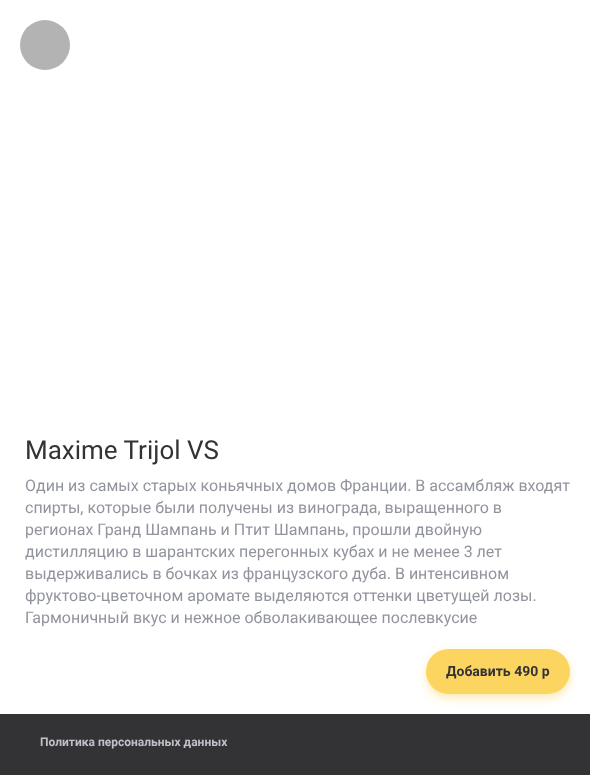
(async () => {
const canvas = document.querySelector("canvas")
canvas.width = 590
canvas.height = 775
const c = canvas.getContext("2d")
c.miterLimit = 4
c.fontKerning = "normal"
function T(s,x,y){c.fillText(s,x,y)}
function R(x,y,w,h){c.fillRect(x,y,w,h)}
function Q(x,y,w,h,r){c.beginPath();c.roundRect(x,y,w,h,r);c.fill()}
c.fillStyle="#fff"
R(0,0,590,775)
c.fillStyle="#b3b3b3"
c.beginPath()
c.arc(45,45,25,0,7)
c.fill()
c.font="26px Roboto"
c.fillStyle="#333336"
T("Maxime Trijol VS",25,459)
c.font="16px Roboto"
c.fillStyle="#91949d"
T("Один из самых старых коньячных домов Франции. В ассамбляж входят",25,491)
T("спирты, которые были получены из винограда, выращенного в",25,513)
T("регионах Гранд Шампань и Птит Шампань, прошли двойную",25,535)
T("дистилляцию в шарантских перегонных кубах и не менее 3 лет",25,557)
T("выдерживались в бочках из французского дуба. В интенсивном",25,579)
T("фруктово-цветочном аромате выделяются оттенки цветущей лозы.",25,601)
T("Гармоничный вкус и нежное обволакивающее послевкусие",25,623)
c.fillStyle="#fcd56180"
c.filter="blur(5px)"
c.beginPath()
c.roundRect(426,653,144,45,22.5)
c.fill()
c.filter="none"
c.fillStyle="#fcd561"
Q(426,649,144,45,22.5)
c.font="bold 14px Roboto"
c.fillStyle="#333336"
T("Добавить 490 р",446,676)
R(0,714,590,61)
c.font="bold 12px Roboto"
c.fillStyle="#bfc1c9"
T("Политика персональных данных",40,746)
})()
